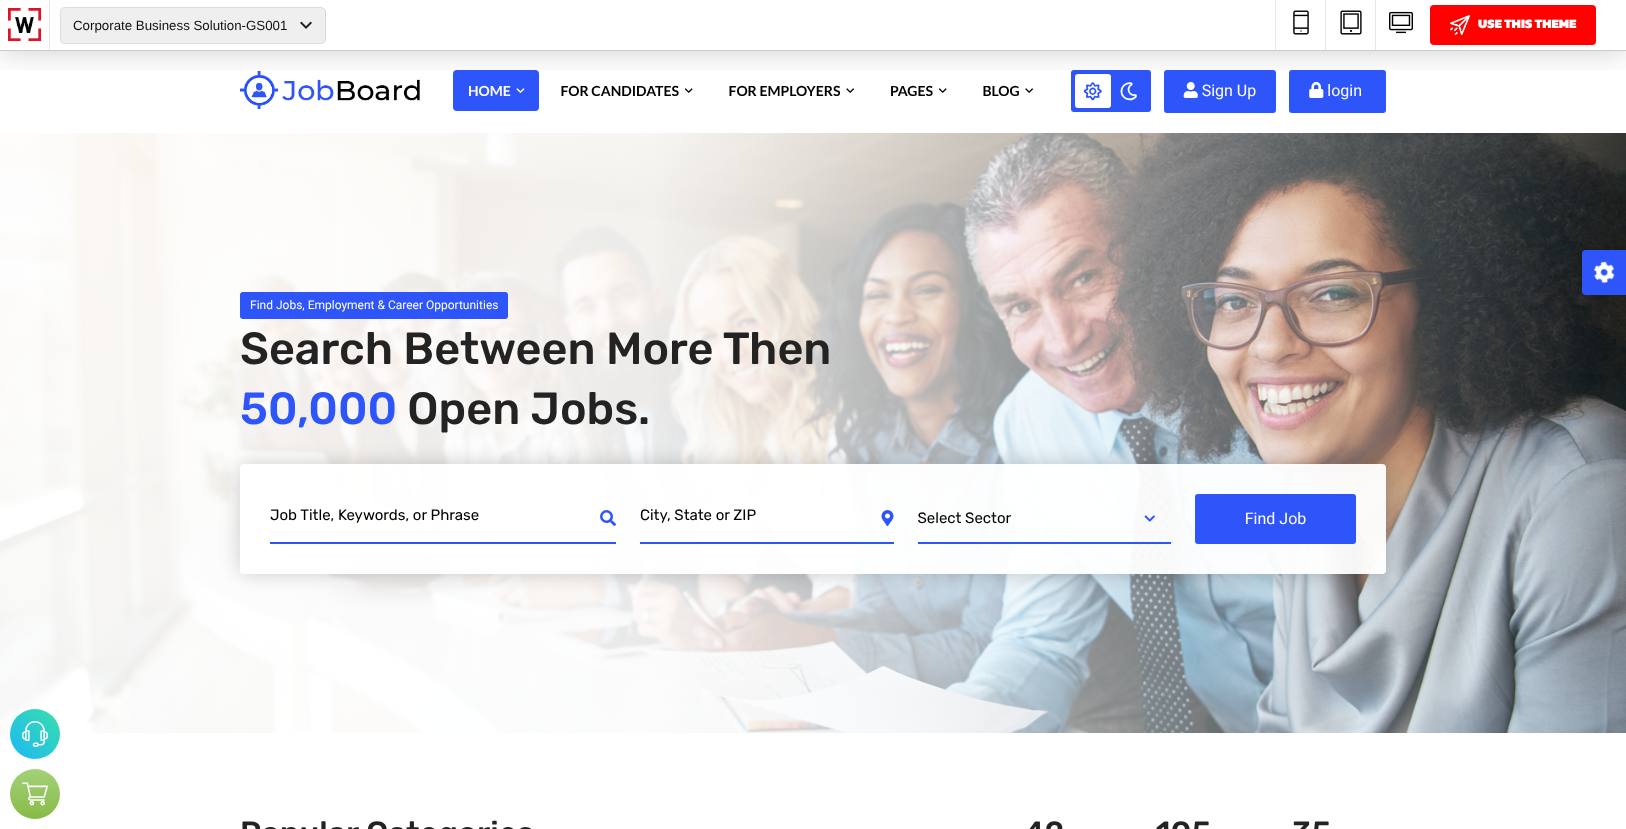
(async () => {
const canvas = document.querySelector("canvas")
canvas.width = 1626
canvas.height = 829
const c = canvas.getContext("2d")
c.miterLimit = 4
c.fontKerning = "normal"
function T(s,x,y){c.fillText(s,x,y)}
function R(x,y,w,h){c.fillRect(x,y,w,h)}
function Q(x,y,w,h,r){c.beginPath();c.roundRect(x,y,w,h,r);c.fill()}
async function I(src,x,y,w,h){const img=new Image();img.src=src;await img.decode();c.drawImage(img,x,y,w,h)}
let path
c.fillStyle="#fff"
R(0,0,1626,829)
await I("7.png",0,70,1626,759)
c.save()
c.beginPath()
c.rect(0,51,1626,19)
c.clip()
c.fillStyle="#00000033"
c.filter="blur(15px)"
c.beginPath()
c.rect(0,0,1626,51)
c.fill()
c.filter="none"
c.restore()
c.fillStyle="#ccc"
R(0,50,1626,1)
c.fillStyle="#e6e6e6"
R(49,0,1,50)
await I("1.png",8,8,33,33)
c.fillStyle="#efefef"
Q(60,7,266,37,5)
await I("2.png",300,21,12,8)
path = new Path2D("M324 9c1 .5 1.5 2 1.5 3v27c0 1-.5 2.5-1.5 3")
c.strokeStyle="#0000001a"
c.stroke(path)
path = new Path2D("M324 42l-3 1.5h-257c-2-.5-3.5-2-3.5-4v-23c0-3.5-.5-8.5 4-9h257l2.5 1.5")
c.strokeStyle="#ddd"
c.stroke(path)
c.font="13.3px Liberation Sans"
c.fillStyle="#121212"
T("Corporate Business Solution-GS001",73,30)
c.fillStyle="#e6e6e6"
R(1275,0,1,50)
await I("3.png",1293,10,16,25)
R(1325,0,1,50)
await I("4.png",1340,10,22,25)
R(1375,0,1,50)
await I("5.png",1389,11,24,23)
c.fillStyle="#ff0101"
Q(1430,5,166,40,4)
await I("6.png",1450,15,20,20)
c.font="900 13px Kanit"
c.fillStyle="#fff"
T("USE THIS THEME",1478,28)
})()
